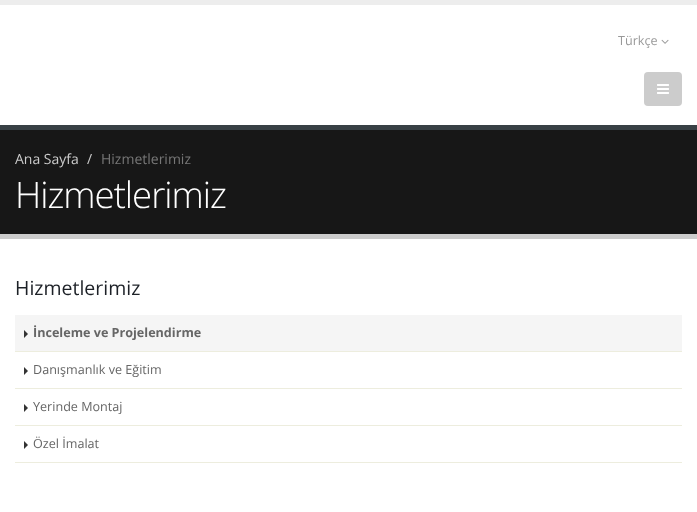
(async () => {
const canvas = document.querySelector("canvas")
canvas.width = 697
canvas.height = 512
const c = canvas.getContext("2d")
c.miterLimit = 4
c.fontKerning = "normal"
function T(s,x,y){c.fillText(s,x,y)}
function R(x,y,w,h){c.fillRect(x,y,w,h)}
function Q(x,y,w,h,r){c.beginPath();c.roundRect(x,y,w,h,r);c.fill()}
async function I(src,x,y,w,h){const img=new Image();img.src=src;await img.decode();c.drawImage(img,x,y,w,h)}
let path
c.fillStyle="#fff"
R(0,0,697,512)
c.fillStyle="#ededed"
R(0,0,697,5)
c.font="12.6px Open Sans"
c.fillStyle="#999"
T("Türkçe",618,45)
await I("1.png",661,39,8,5)
c.fillStyle="#ccc"
Q(644,72,38,34,4)
await I("2.png",657,84,12,10)
c.fillStyle="#171717"
R(0,130,697,104)
c.fillStyle="#384045"
R(0,125,697,5)
c.fillStyle="#ccc"
R(0,234,697,5)
c.font="14px Open Sans"
T("Ana Sayfa",15,164)
T("/",87,164)
c.fillStyle="#777"
T("Hizmetlerimiz",101,164)
c.letterSpacing="-1px"
c.font="300 36.5px Open Sans"
c.fillStyle="#fff"
T("Hizmetlerimiz",15,208)
c.letterSpacing="0px"
c.font="19.5px Open Sans"
c.fillStyle="#1d2127"
T("Hizmetlerimiz",15,295)
c.fillStyle="#f5f5f5"
R(15,315,667,36)
c.fillStyle="#ededde"
R(15,351,667,1)
c.fillStyle="#333"
path = new Path2D("M24 338v-8l4 4z")
c.fill(path)
c.font="bold 12.6px Open Sans"
c.fillStyle="#666"
T("İnceleme ve Projelendirme",33,337)
c.fillStyle="#ededde"
R(15,388,667,1)
c.fillStyle="#333"
path = new Path2D("M24 375v-8l4 4z")
c.fill(path)
c.font="12.6px Open Sans"
c.fillStyle="#666"
T("Danışmanlık ve Eğitim",33,374)
c.fillStyle="#ededde"
R(15,425,667,1)
c.fillStyle="#333"
path = new Path2D("M24 412v-8l4 4z")
c.fill(path)
c.fillStyle="#666"
T("Yerinde Montaj",33,411)
c.fillStyle="#ededde"
R(15,462,667,1)
c.fillStyle="#333"
path = new Path2D("M24 449v-8l4 4z")
c.fill(path)
c.fillStyle="#666"
T("Özel İmalat",33,448)
})()
